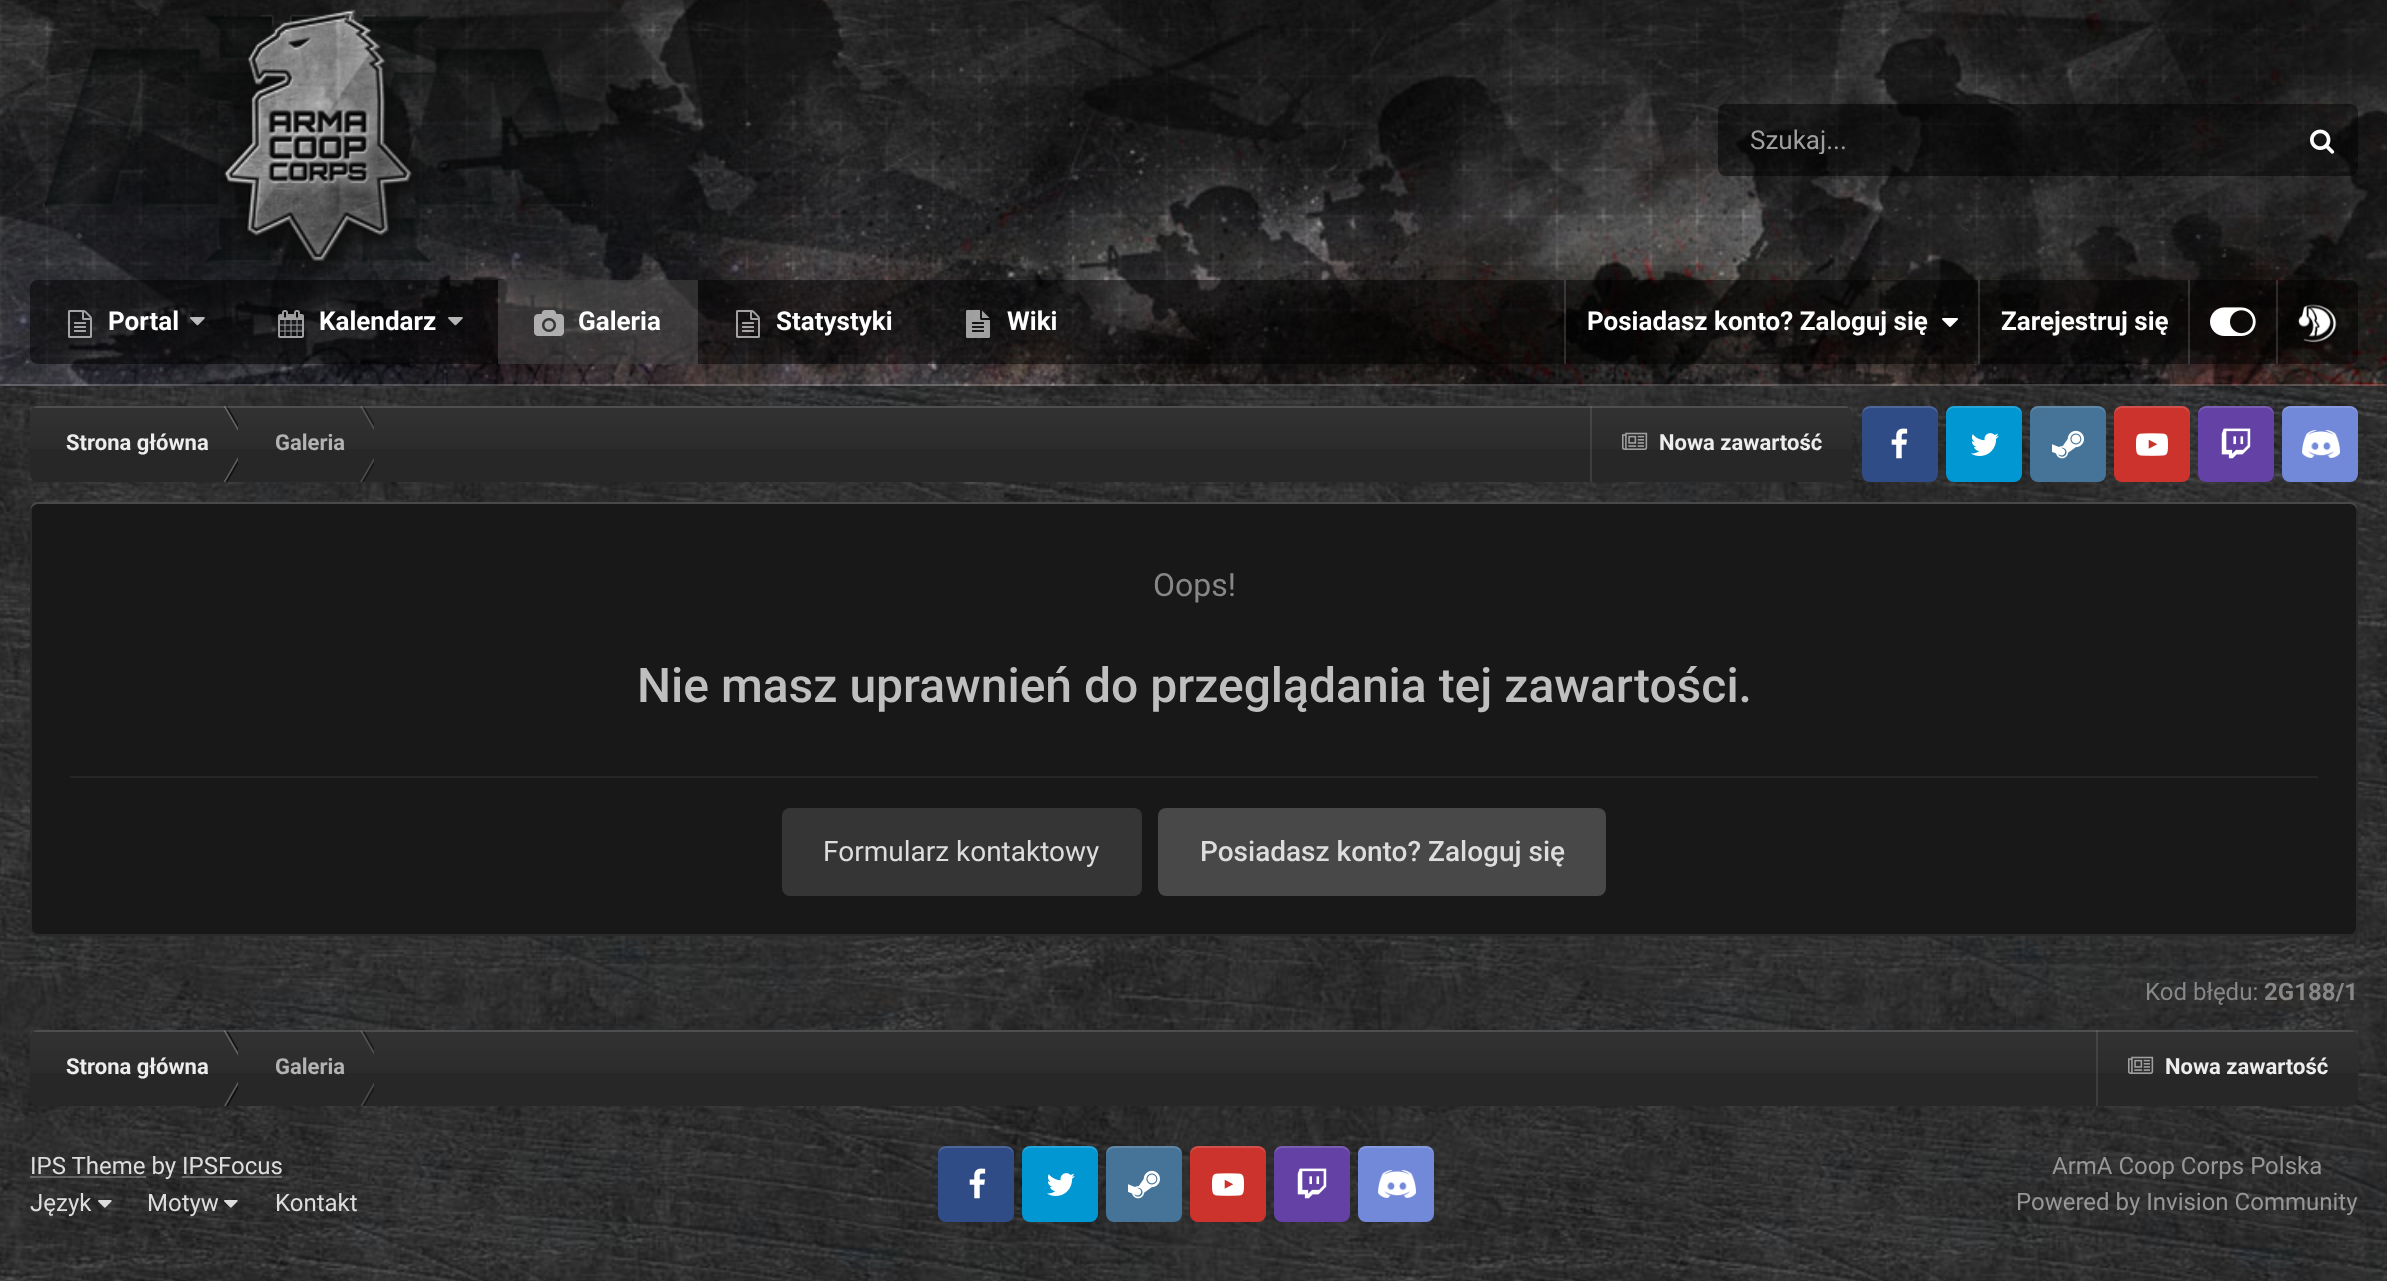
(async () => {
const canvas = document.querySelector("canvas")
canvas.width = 2387
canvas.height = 1281
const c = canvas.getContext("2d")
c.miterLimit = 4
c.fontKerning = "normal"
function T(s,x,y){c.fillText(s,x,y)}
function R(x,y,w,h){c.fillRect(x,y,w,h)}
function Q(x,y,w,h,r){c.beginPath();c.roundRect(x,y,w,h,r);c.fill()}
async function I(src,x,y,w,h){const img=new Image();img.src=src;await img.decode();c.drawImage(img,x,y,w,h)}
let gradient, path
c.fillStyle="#fff"
R(0,0,2387,1281)
await I("1.png",0,386,2387,895)
await I("2.png",0,0,2387,386)
await I("3.png",0,0,2387,386)
c.fillStyle="#ffffff33"
R(0,384,2387,2)
await I("4.png",43,9,550,268)
c.fillStyle="#00000080"
Q(1718,104,640,72,8)
c.save()
c.beginPath()
c.rect(1750,124,316,30)
c.clip()
c.font="26px Roboto"
c.fillStyle="#9f9f9f"
T("Szukaj...",1750,149)
c.restore()
await I("5.png",2310,129,25,25)
Q(30,280,2328,84,8)
await I("6.png",68,310,24,28)
c.font="bold 26px Roboto"
c.fillStyle="#fff"
T("Portal",108,330)
await I("7.png",190,317,15,9)
await I("8.png",278,310,26,28)
T("Kalendarz",319,330)
await I("9.png",448,317,15,9)
c.fillStyle="#ffffff26"
R(498,280,200,84)
await I("10.png",534,310,30,26)
c.fillStyle="#fff"
T("Galeria",578,330)
await I("11.png",736,310,24,28)
T("Statystyki",776,330)
await I("12.png",966,310,24,28)
T("Wiki",1007,330)
c.fillStyle="#ffffff26"
R(1564,280,2,84)
c.fillStyle="#fff"
T("Posiadasz konto? Zaloguj się",1587,330)
await I("13.png",1942,318,16,9)
c.fillStyle="#ffffff26"
R(1978,280,2,84)
c.fillStyle="#fff"
T("Zarejestruj się",2001,330)
c.fillStyle="#ffffff26"
R(2188,280,2,84)
await I("14.png",2210,307,46,29)
R(2276,280,2,84)
await I("15.png",2298,304,40,40)
c.fillStyle="#272727"
Q(30,406,1822,76,8)
gradient = c.createLinearGradient(941,406,941,482)
gradient.addColorStop(0,"#ffffff0d")
gradient.addColorStop(1,"#ffffff00")
c.fillStyle = gradient
R(30,406,1822,43)
c.save()
c.beginPath()
c.rect(30,406,208,76)
c.clip()
c.fillStyle="#ffffff40"
path = new Path2D("M223.5 406h2l22 38h-2z")
c.fill(path)
c.fillStyle="#00000099"
path = new Path2D("M225.5 406h2l22 38h-2z")
c.fill(path)
c.restore()
c.save()
c.beginPath()
c.rect(238,406,136,76)
c.clip()
c.fillStyle="#ffffff2b"
path = new Path2D("M360 406h2l22 38h-2z")
c.fill(path)
c.fillStyle="#0000006b"
path = new Path2D("M362 406h2l22 38h-2z")
c.fill(path)
c.restore()
c.fillStyle="#ffffff1a"
R(1590,406,2,76)
c.save()
c.beginPath()
c.roundRect(30,406,1822,76,8)
c.clip()
c.fillStyle="#bfbfbf33"
R(34,406,1814,2)
c.restore()
c.font="bold 22px Roboto"
c.fillStyle="#ededed"
T("Strona główna",66,450)
c.save()
c.beginPath()
c.rect(30,406,208,76)
c.clip()
c.fillStyle="#ffffff40"
path = new Path2D("M223.5 482h2l22-38h-2z")
c.fill(path)
c.fillStyle="#00000099"
path = new Path2D("M225.5 482h2l22-38h-2z")
c.fill(path)
c.restore()
c.fillStyle="#b3b3b3"
T("Galeria",275,450)
c.save()
c.beginPath()
c.rect(238,406,136,76)
c.clip()
c.fillStyle="#ffffff2b"
path = new Path2D("M360 482h2l22-38h-2z")
c.fill(path)
c.fillStyle="#0000006b"
path = new Path2D("M362 482h2l22-38h-2z")
c.fill(path)
c.restore()
await I("16.png",1622,432,26,18)
c.fillStyle="#ededed"
T("Nowa zawartość",1659,450)
c.fillStyle="#304c87"
Q(1862,406,76,76,8)
c.fillStyle="#ffffff26"
path = new Path2D("M1870 408c-4 0-8 4-8 8c0-12 9-10 18-10h40c9 0 18-2 18 10c0-4-4-8-8-8z")
c.fill(path)
await I("17.png",1891,428,17,31)
c.fillStyle="#0097d3"
Q(1946,406,76,76,8)
c.fillStyle="#ffffff26"
path = new Path2D("M1954 408c-4 0-8 4-8 8c0-12 9-10 18-10h40c9 0 18-2 18 10c0-4-4-8-8-8z")
c.fill(path)
await I("18.png",1971,433,28,23)
c.fillStyle="#457498"
Q(2030,406,76,76,8)
c.fillStyle="#ffffff26"
path = new Path2D("M2038 408c-4 0-8 4-8 8c0-12 9-10 18-10h40c9 0 18-2 18 10c0-4-4-8-8-8z")
c.fill(path)
await I("19.png",2052,430,32,29)
c.fillStyle="#cc332d"
Q(2114,406,76,76,8)
c.fillStyle="#ffffff26"
path = new Path2D("M2122 408c-4 0-8 4-8 8c0-12 9-10 18-10h40c9 0 18-2 18 10c0-4-4-8-8-8z")
c.fill(path)
await I("20.png",2136,433,32,23)
c.fillStyle="#6441a5"
Q(2198,406,76,76,8)
c.fillStyle="#ffffff26"
path = new Path2D("M2206 408c-4 0-8 4-8 8c0-12 9-10 18-10h40c9 0 18-2 18 10c0-4-4-8-8-8z")
c.fill(path)
await I("21.png",2221,428,30,31)
c.fillStyle="#7289da"
Q(2282,406,76,76,8)
c.fillStyle="#ffffff26"
path = new Path2D("M2290 408c-4 0-8 4-8 8c0-12 9-10 18-10h40c9 0 18-2 18 10c0-4-4-8-8-8z")
c.fill(path)
await I("22.png",2302,430,38,28)
c.fillStyle="#181818"
Q(30,502,2328,434,8)
c.fillStyle="#ffffff26"
path = new Path2D("M38 504h2312c4 0 8 4 8 8c0-5-2-10-8-10h-2312c-6 0-8 5-8 10c0-4 4-8 8-8z")
c.fill(path)
c.beginPath()
c.roundRect(31,503,2326,432,7)
c.strokeStyle="#ffffff14"
c.lineWidth=2
c.stroke()
c.font="32px Roboto"
c.fillStyle="#878787"
T("Oops!",1153,596)
c.font="500 48px Roboto"
c.fillStyle="#bfbfbf"
T("Nie masz uprawnień do przeglądania tej zawartości.",637,702)
c.fillStyle="#252525"
R(70,776,2248,2)
c.fillStyle="#353535"
Q(782,808,360,88,8)
c.font="28px Roboto"
c.fillStyle="#ddd"
T("Formularz kontaktowy",823,861)
c.fillStyle="#484848"
Q(1158,808,448,88,8)
c.font="500 28px Roboto"
c.fillStyle="#ddd"
T("Posiadasz konto? Zaloguj się",1200,861)
c.font="24px Roboto"
c.fillStyle="#878787"
T("Kod błędu:",2145,1000)
c.font="bold 24px Roboto"
T("2G188/1",2264,1000)
c.fillStyle="#272727"
Q(30,1030,2328,76,8)
gradient = c.createLinearGradient(1194,1030,1194,1106)
gradient.addColorStop(0,"#ffffff0d")
gradient.addColorStop(1,"#ffffff00")
c.fillStyle = gradient
R(30,1030,2328,43)
c.save()
c.beginPath()
c.rect(30,1030,208,76)
c.clip()
c.fillStyle="#ffffff40"
path = new Path2D("M223.5 1030.5h2l22 38h-2z")
c.fill(path)
c.fillStyle="#00000099"
path = new Path2D("M225.5 1030.5h2l22 38h-2z")
c.fill(path)
c.restore()
c.save()
c.beginPath()
c.rect(238,1030,136,76)
c.clip()
c.fillStyle="#ffffff2b"
path = new Path2D("M360 1030.5h2l22 38h-2z")
c.fill(path)
c.fillStyle="#0000006b"
path = new Path2D("M362 1030.5h2l22 38h-2z")
c.fill(path)
c.restore()
c.fillStyle="#ffffff1a"
R(2096,1030,2,76)
c.save()
c.beginPath()
c.roundRect(30,1030,2328,76,8)
c.clip()
c.fillStyle="#bfbfbf33"
R(34,1030,2320,2)
c.restore()
c.font="bold 22px Roboto"
c.fillStyle="#ededed"
T("Strona główna",66,1074)
c.save()
c.beginPath()
c.rect(30,1030,208,76)
c.clip()
c.fillStyle="#ffffff40"
path = new Path2D("M226 1106l21.5-37.5h-2l-21.5 37.5z")
c.fill(path)
c.fillStyle="#00000099"
path = new Path2D("M228 1106l21.5-37.5h-2l-21.5 37.5z")
c.fill(path)
c.restore()
c.fillStyle="#b3b3b3"
T("Galeria",275,1074)
c.save()
c.beginPath()
c.rect(238,1030,136,76)
c.clip()
c.fillStyle="#ffffff2b"
path = new Path2D("M362.5 1106l21.5-37.5h-2l-21.5 37.5z")
c.fill(path)
c.fillStyle="#0000006b"
path = new Path2D("M364.5 1106l21.5-37.5h-2l-21.5 37.5z")
c.fill(path)
c.restore()
await I("16.png",2128,1056,26,18)
c.fillStyle="#ededed"
T("Nowa zawartość",2165,1074)
c.fillStyle="#dddddd4d"
R(30,1176,116,2)
c.font="24px Roboto"
c.fillStyle="#ddd"
T("IPS Theme by IPSFocus",30,1174)
c.fillStyle="#dddddd4d"
R(182,1176,100,2)
c.fillStyle="#ddd"
T("Język",30,1211)
await I("23.png",98,1200,14,8)
T("Motyw",147,1211)
await I("24.png",224,1200,14,8)
T("Kontakt",275,1211)
c.fillStyle="#304c87"
Q(938,1146,76,76,8)
c.fillStyle="#ffffff26"
path = new Path2D("M946 1148c-4 0-8 4-8 8c0-12 9-10 18-10h40c9 0 18-2 18 10c0-4-4-8-8-8z")
c.fill(path)
await I("17.png",969,1168,17,31)
c.fillStyle="#0097d3"
Q(1022,1146,76,76,8)
c.fillStyle="#ffffff26"
path = new Path2D("M1030 1148c-4 0-8 4-8 8c0-12 9-10 18-10h40c9 0 18-2 18 10c0-4-4-8-8-8z")
c.fill(path)
await I("18.png",1047,1173,28,23)
c.fillStyle="#457498"
Q(1106,1146,76,76,8)
c.fillStyle="#ffffff26"
path = new Path2D("M1114 1148c-4 0-8 4-8 8c0-12 9-10 18-10h40c9 0 18-2 18 10c0-4-4-8-8-8z")
c.fill(path)
await I("19.png",1128,1170,32,29)
c.fillStyle="#cc332d"
Q(1190,1146,76,76,8)
c.fillStyle="#ffffff26"
path = new Path2D("M1198 1148c-4 0-8 4-8 8c0-12 9-10 18-10h40c9 0 18-2 18 10c0-4-4-8-8-8z")
c.fill(path)
await I("20.png",1212,1173,32,23)
c.fillStyle="#6441a5"
Q(1274,1146,76,76,8)
c.fillStyle="#ffffff26"
path = new Path2D("M1282 1148c-4 0-8 4-8 8c0-12 9-10 18-10h40c9 0 18-2 18 10c0-4-4-8-8-8z")
c.fill(path)
await I("21.png",1297,1168,30,31)
c.fillStyle="#7289da"
Q(1358,1146,76,76,8)
c.fillStyle="#ffffff26"
path = new Path2D("M1366 1148c-4 0-8 4-8 8c0-12 9-10 18-10h40c9 0 18-2 18 10c0-4-4-8-8-8z")
c.fill(path)
await I("22.png",1378,1170,38,28)
c.fillStyle="#979797"
T("ArmA Coop Corps Polska",2052,1174)
T("Powered by Invision Community",2016,1210)
})()
